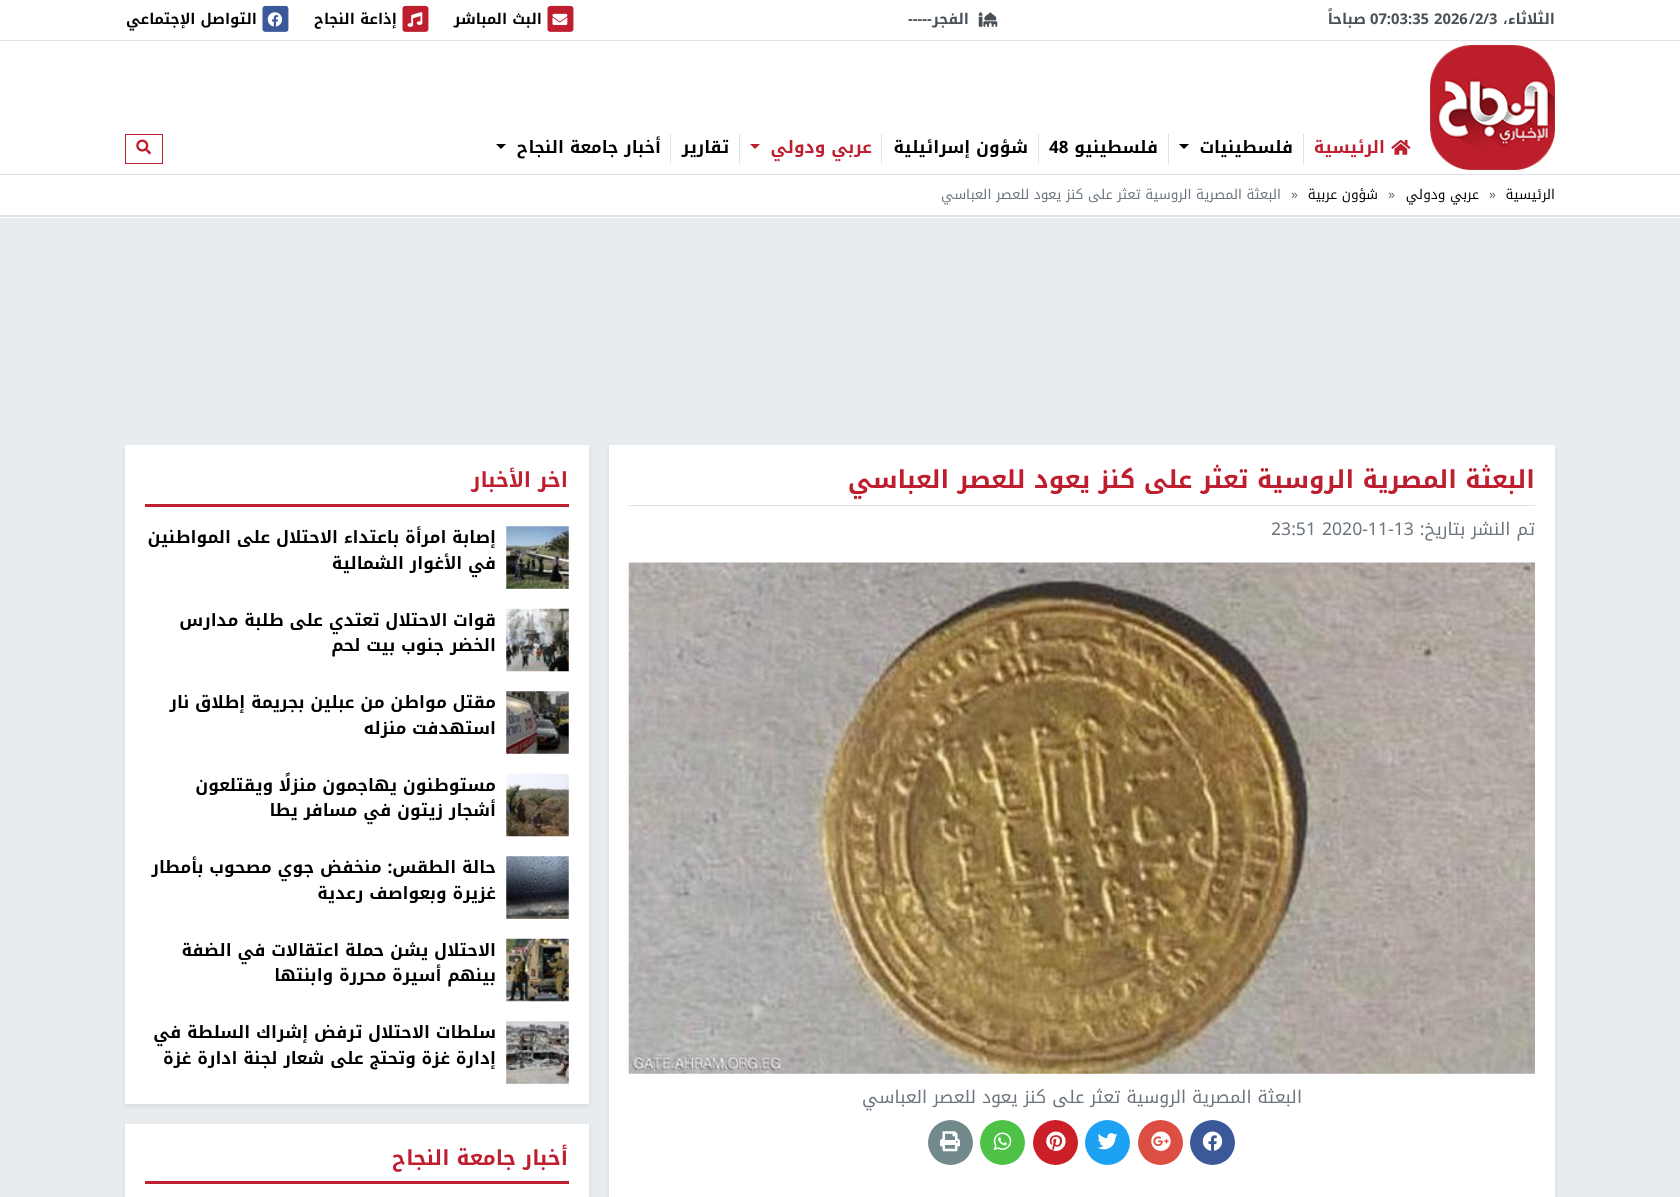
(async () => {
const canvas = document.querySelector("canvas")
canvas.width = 1680
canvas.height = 1197
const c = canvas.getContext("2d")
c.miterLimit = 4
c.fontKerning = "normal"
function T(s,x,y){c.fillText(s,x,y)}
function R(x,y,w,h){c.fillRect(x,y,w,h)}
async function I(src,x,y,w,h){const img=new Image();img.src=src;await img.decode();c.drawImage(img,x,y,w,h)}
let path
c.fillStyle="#e9ecef"
R(0,0,1680,1197)
c.fillStyle="#fff"
R(0,0,1680,218)
c.fillStyle="#dee2e6"
R(0,215,1680,2)
R(0,40,1680,1)
c.direction="rtl"
c.font="bold 14.75px Noto Kufi Arabic"
c.fillStyle="#495057"
T("الثلاثاء،",1555,24)
T("/",1489,24)
c.direction="ltr"
T("3",1489,24)
T("2",1475,24)
T("07:03:35 2026",1370,24)
c.direction="rtl"
T("/",1475,24)
T("صباحاً",1366,24)
await I("1.png",978,12,20,15)
T("الفجر",969,24)
c.direction="ltr"
T("-----",908,24)
await I("2.png",547,5,27,27)
await I("3.png",552,13,16,12)
c.direction="rtl"
c.fillStyle="#000"
T("البث المباشر",542,24)
await I("2.png",402,5,27,27)
await I("4.png",407,12,16,15)
T("إذاعة النجاح",397,24)
await I("5.png",262,5,27,27)
await I("6.png",267,12,16,15)
T("التواصل الإجتماعي",257,24)
await I("7.png",1430,45,125,125)
c.fillStyle="#dee2e6"
R(1303,134,1,30)
await I("8.png",1391,139,20,16)
c.font="bold 17px Noto Kufi Arabic"
c.fillStyle="#be1e2d"
T("الرئيسية",1385,153)
c.fillStyle="#dee2e6"
R(1168,134,1,30)
c.fillStyle="#000"
T("فلسطينيات",1293,153)
path = new Path2D("M1179 144h10l-5 5z")
c.fill(path)
c.fillStyle="#dee2e6"
R(1038,134,1,30)
c.fillStyle="#000"
T("فلسطينيو",1158,153)
c.direction="ltr"
T("48",1049,153)
c.fillStyle="#dee2e6"
R(881,134,1,30)
c.direction="rtl"
c.fillStyle="#000"
T("شؤون إسرائيلية",1028,153)
c.fillStyle="#dee2e6"
R(739,134,1,30)
c.fillStyle="#be1e2d"
T("عربي ودولي",872,153)
path = new Path2D("M750 144h10l-5 5z")
c.fill(path)
c.fillStyle="#dee2e6"
R(670,134,1,30)
c.fillStyle="#000"
T("تقارير",729,153)
T("أخبار جامعة النجاح",661,153)
path = new Path2D("M496 144h10l-5 5z")
c.fill(path)
c.strokeStyle="#be1e2d"
c.strokeRect(125.5,134.5,37,29)
await I("9.png",136,139,15,16)
c.fillStyle="#dee2e6"
R(0,174,1680,1)
c.font="13.6px Noto Kufi Arabic"
c.fillStyle="#000"
T("الرئيسية",1555,199)
c.direction="ltr"
c.fillStyle="#6c757d"
T("»",1489,199)
c.direction="rtl"
c.fillStyle="#000"
T("عربي ودولي",1479,199)
c.direction="ltr"
c.fillStyle="#6c757d"
T("»",1388,199)
c.direction="rtl"
c.fillStyle="#000"
T("شؤون عربية",1378,199)
c.direction="ltr"
c.fillStyle="#6c757d"
T("»",1291,199)
c.direction="rtl"
T("البعثة المصرية الروسية تعثر على كنز يعود للعصر العباسي",1281,199)
c.fillStyle="#00000012"
c.filter="blur(2.5px)"
c.beginPath()
c.rect(609,448,946,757)
c.fill()
c.filter="none"
c.fillStyle="#fff"
R(609,445,946,752)
c.fillStyle="#dee2e6"
R(629,505,906,1)
c.font="bold 24.75px Noto Kufi Arabic"
c.fillStyle="#be1e2d"
T("البعثة المصرية الروسية تعثر على كنز يعود للعصر العباسي",1535,488)
c.font="17.6px Noto Kufi Arabic"
c.fillStyle="#6c757d"
T("تم النشر بتاريخ:",1535,535)
c.direction="ltr"
T("23:51 2020-11-13",1271,535)
await I("10.png",628,562,907,512)
c.direction="rtl"
T("البعثة المصرية الروسية تعثر على كنز يعود للعصر العباسي",1302,1103)
c.fillStyle="#3b5998"
c.beginPath()
c.arc(1212.5,1142.5,22.5,0,7)
c.fill()
await I("11.png",1202,1131,21,20)
c.fillStyle="#dc4e41"
c.beginPath()
c.arc(1160.5,1142.5,22.5,0,7)
c.fill()
await I("12.png",1151,1131,20,20)
c.fillStyle="#1da1f2"
c.beginPath()
c.arc(1107.5,1142.5,22.5,0,7)
c.fill()
await I("13.png",1097,1133,21,17)
c.fillStyle="#cb2027"
c.beginPath()
c.arc(1055.5,1142.5,22.5,0,7)
c.fill()
await I("14.png",1046,1131,20,20)
c.fillStyle="#4dc247"
c.beginPath()
c.arc(1002.5,1142.5,22.5,0,7)
c.fill()
await I("15.png",993,1132,19,18)
c.fillStyle="#738a8d"
c.beginPath()
c.arc(950.5,1142.5,22.5,0,7)
c.fill()
await I("16.png",940,1131,20,21)
c.fillStyle="#00000012"
c.filter="blur(2.5px)"
c.beginPath()
c.rect(125,448,464,658)
c.fill()
c.filter="none"
c.fillStyle="#fff"
R(125,445,464,659)
c.fillStyle="#be1e2d"
R(145,504,424,3)
c.font="bold 20.75px Noto Kufi Arabic"
T("اخر الأخبار",568,487)
await I("17.png",506,526,63,63)
c.font="bold 17px Noto Kufi Arabic"
c.fillStyle="#000"
T("إصابة امرأة باعتداء الاحتلال على المواطنين",496,543)
T("في الأغوار الشمالية",496,569)
await I("18.png",506,608,63,64)
T("قوات الاحتلال تعتدي على طلبة مدارس",496,626)
T("الخضر جنوب بيت لحم",496,651)
await I("19.png",506,691,63,63)
T("مقتل مواطن من عبلين بجريمة إطلاق نار",496,708)
T("استهدفت منزله",496,734)
await I("20.png",506,773,63,64)
T("مستوطنون يهاجمون منزلًا ويقتلعون",496,791)
T("أشجار زيتون في مسافر يطا",496,816)
await I("21.png",506,856,63,63)
T("حالة الطقس: منخفض جوي مصحوب بأمطار",496,873)
T("غزيرة وبعواصف رعدية",496,899)
await I("22.png",506,938,63,64)
T("الاحتلال يشن حملة اعتقالات في الضفة",496,956)
T("بينهم أسيرة محررة وابنتها",496,981)
await I("23.png",506,1021,63,63)
T("سلطات الاحتلال ترفض إشراك السلطة في",496,1038)
T("إدارة غزة وتحتج على شعار لجنة ادارة غزة",496,1064)
c.fillStyle="#00000012"
c.filter="blur(2.5px)"
c.beginPath()
c.rect(125,1126,464,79)
c.fill()
c.filter="none"
c.fillStyle="#fff"
R(125,1124,464,73)
c.fillStyle="#be1e2d"
R(145,1181,424,3)
c.font="bold 20.75px Noto Kufi Arabic"
T("أخبار جامعة النجاح",568,1165)
})()
